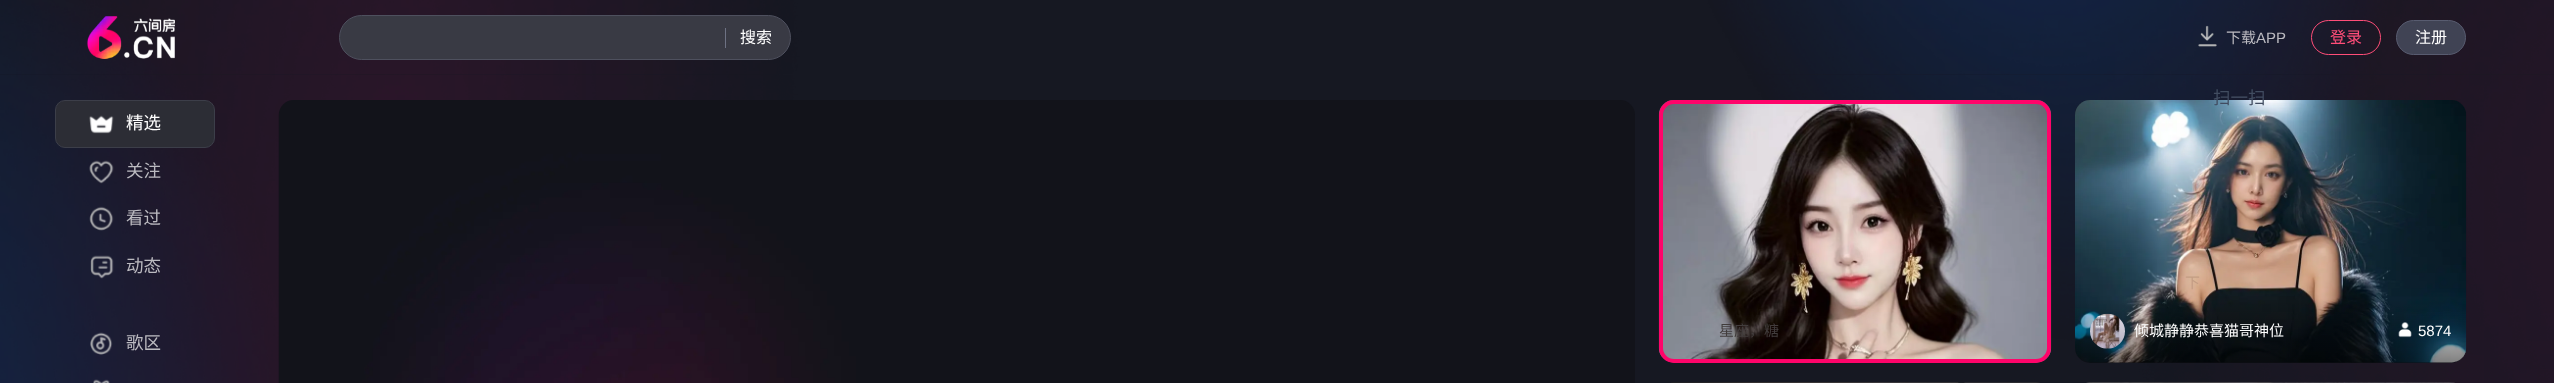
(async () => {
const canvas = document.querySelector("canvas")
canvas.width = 2554
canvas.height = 383
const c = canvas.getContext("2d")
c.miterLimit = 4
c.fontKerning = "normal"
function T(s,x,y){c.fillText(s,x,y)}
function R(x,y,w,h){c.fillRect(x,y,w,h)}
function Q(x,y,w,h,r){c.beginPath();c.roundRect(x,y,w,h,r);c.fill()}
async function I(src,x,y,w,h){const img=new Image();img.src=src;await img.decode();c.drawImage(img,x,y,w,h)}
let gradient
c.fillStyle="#161822"
R(0,0,2554,383)
await I("1.png",0,75,2554,308)
c.fillStyle="#2c2d35"
c.beginPath()
c.roundRect(55.5,100.5,159,47,9.5)
c.fill()
c.strokeStyle="#3c3e49"
c.stroke()
await I("2.png",89,115,25,19)
c.font="17.5px Noto Sans CJK SC"
c.fillStyle="#fff"
T("精选",126,129)
await I("3.png",89,160,25,24)
c.fillStyle="#bbbac0"
T("关注",126,177)
await I("4.png",89,206,25,25)
T("看过",126,224)
await I("5.png",90,255,24,24)
T("动态",126,272)
await I("6.png",90,332,23,23)
T("歌区",126,349)
await I("7.png",93,379,17,4)
await I("8.png",0,0,2554,75)
await I("9.png",87,16,88,43)
c.fillStyle="#393a44"
c.beginPath()
c.roundRect(339.5,15.5,451,44,22)
c.fill()
c.strokeStyle="#4e505e"
c.stroke()
c.fillStyle="#6e7284"
R(725,28,1,20)
c.font="16px Noto Sans CJK SC"
c.fillStyle="#fff"
T("搜索",740,43)
await I("10.png",2198,25,19,22)
c.font="15px Noto Sans CJK SC"
c.fillStyle="#bbbac0"
T("下载",2226,43)
c.font="15px Liberation Sans"
T("APP",2256,43)
c.fillStyle="#20222f"
Q(2075,100,391,263,15)
c.fillStyle="#0000001f"
Q(2075,100,391,263,15)
await I("13.png",2075,100,392,263)
c.font="17.5px Noto Sans CJK SC"
c.fillStyle="#414c60"
T("扫一扫",2213,104)
c.font="15px Noto Sans CJK SC"
c.fillStyle="#c49d84"
T("下",2185,288)
c.beginPath()
c.roundRect(2311.5,20.5,69,34,17)
c.strokeStyle="#ff4d78"
c.stroke()
c.font="16px Noto Sans CJK SC"
c.fillStyle="#ff4d78"
T("登录",2330,43)
c.fillStyle="#404354"
c.beginPath()
c.roundRect(2396.5,20.5,69,34,17)
c.fill()
c.strokeStyle="#585c70"
c.stroke()
c.fillStyle="#fff"
T("注册",2415,43)
await I("11.png",278,100,1357,283)
await I("12.png",1658,100,394,263)
c.beginPath()
c.roundRect(1661,102,388,259,13)
c.strokeStyle="#ff046a"
c.lineWidth=4
c.stroke()
c.font="15px Noto Sans CJK SC"
c.fillStyle="#413c3c"
T("星座，糖",1719,336)
gradient = c.createLinearGradient(2271,300,2271,363)
gradient.addColorStop(0,"#00000000")
gradient.addColorStop(.5,"#00000040")
gradient.addColorStop(1,"#00000080")
c.fillStyle = gradient
c.beginPath()
c.roundRect(2075,300,391,63,[0,0,15,15])
c.fill()
await I("14.png",2090,313,35,36)
c.fillStyle="#fff"
T("倾城静静恭喜猫哥神位",2134,336)
await I("15.png",2398,322,14,16)
c.font="15px Liberation Sans"
T("5874",2418,336)
await I("16.png",1671,382,369,1)
await I("17.png",2086,382,369,1)
})()
